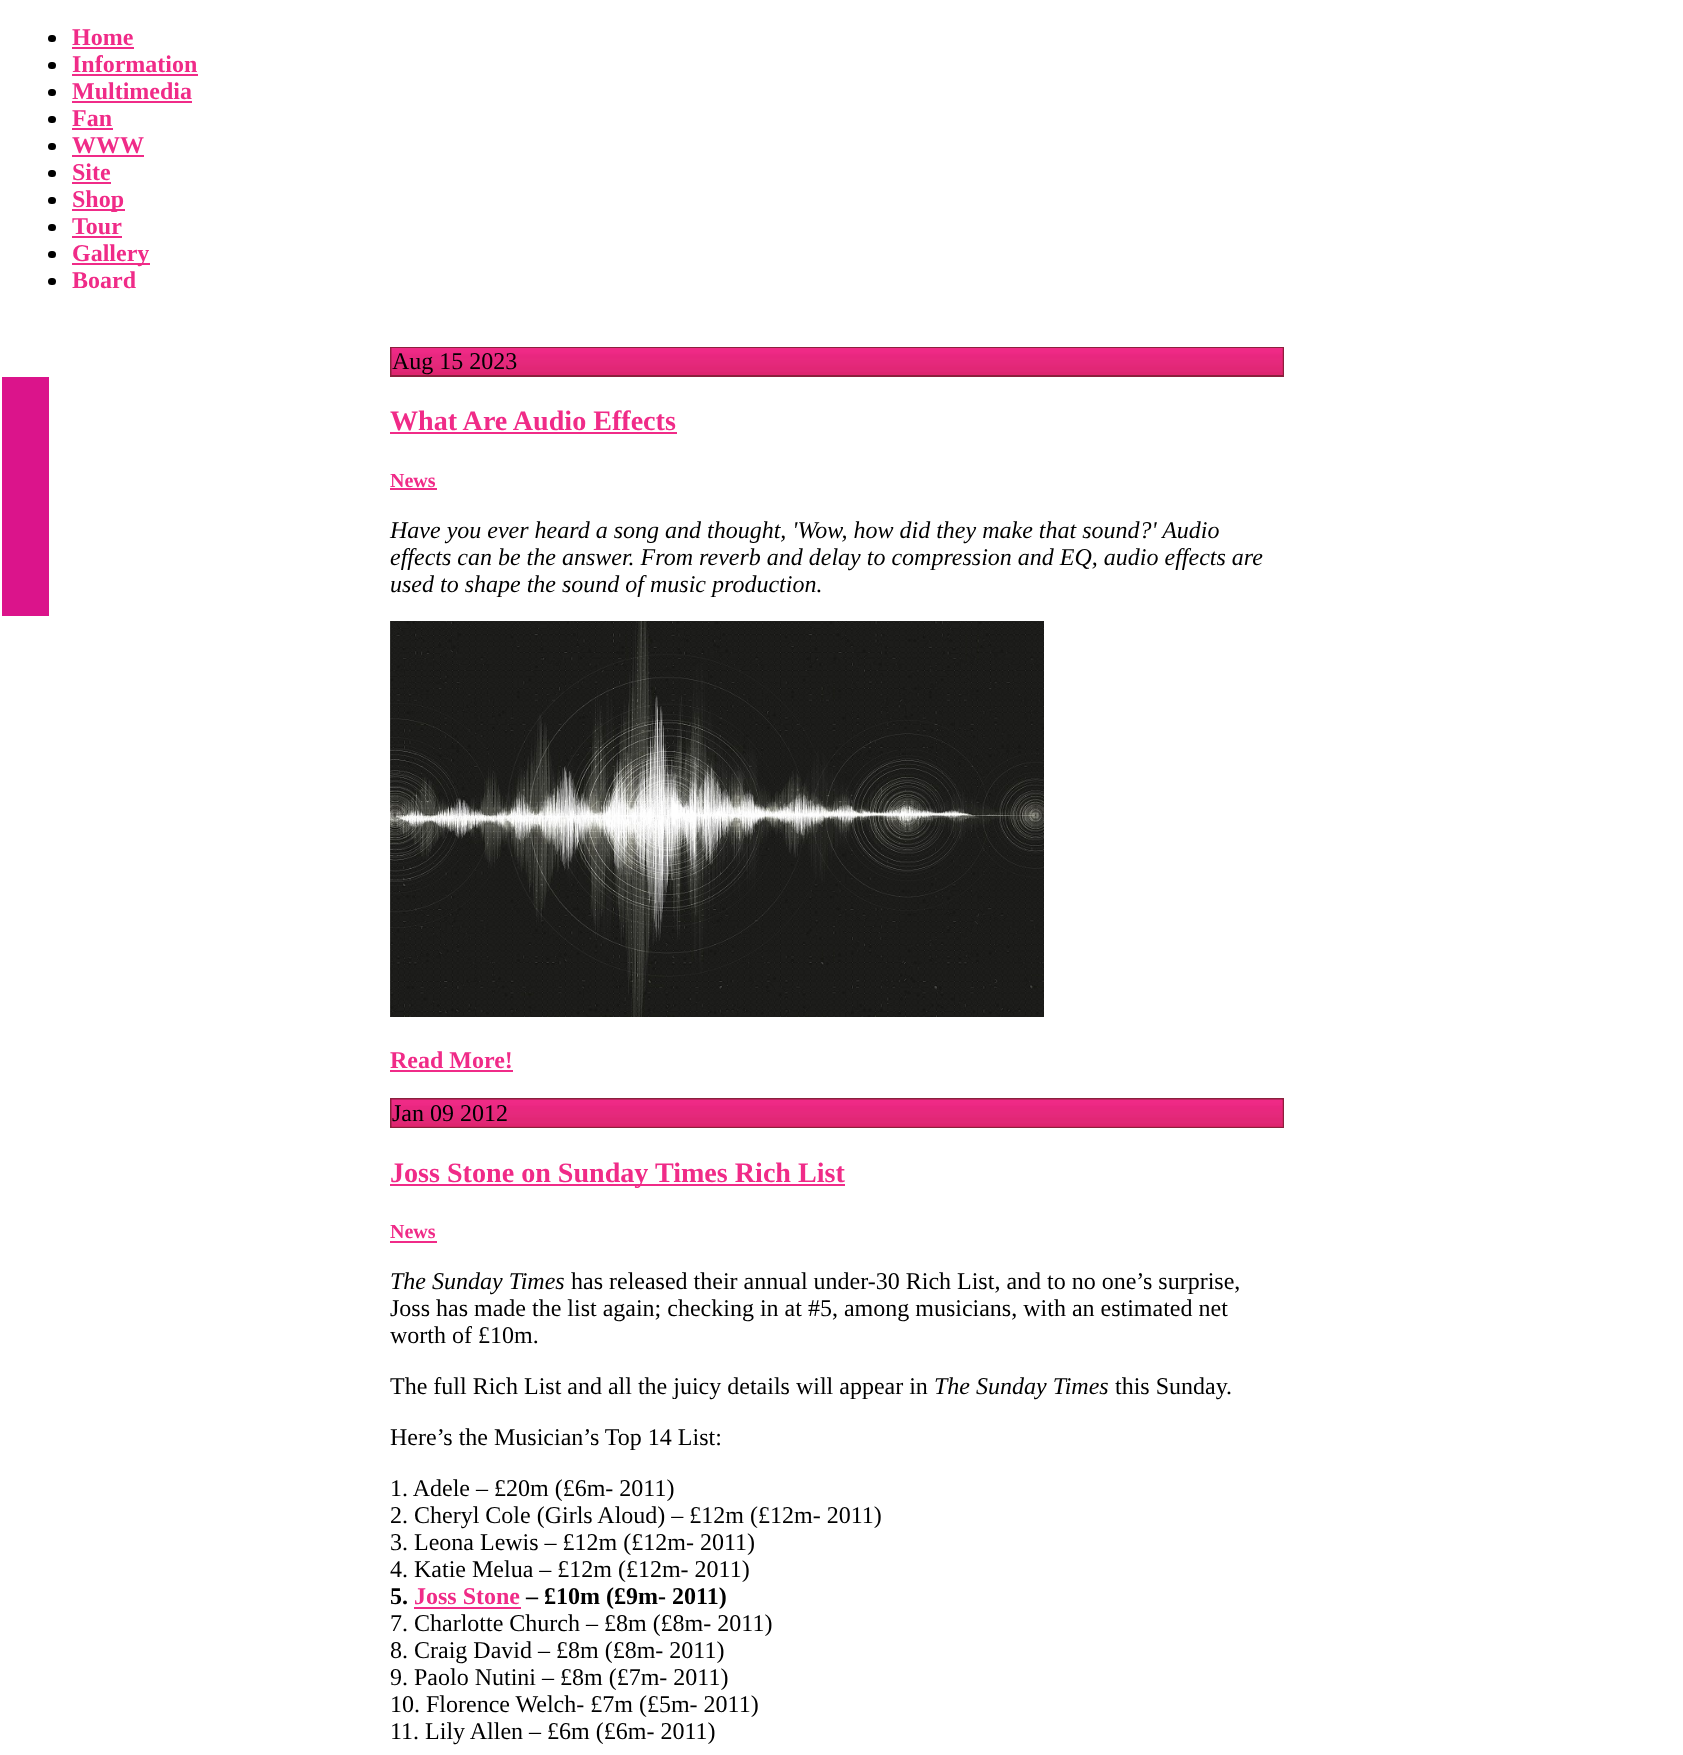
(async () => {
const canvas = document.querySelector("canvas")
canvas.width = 1683
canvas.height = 1755
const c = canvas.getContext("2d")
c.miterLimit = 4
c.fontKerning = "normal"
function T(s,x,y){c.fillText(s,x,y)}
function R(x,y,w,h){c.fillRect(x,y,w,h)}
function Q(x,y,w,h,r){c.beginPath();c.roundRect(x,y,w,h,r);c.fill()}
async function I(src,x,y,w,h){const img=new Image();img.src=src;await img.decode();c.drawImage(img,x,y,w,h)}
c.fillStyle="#fff"
R(0,0,1683,1755)
c.fillStyle="#000"
Q(48,35,8,7,3.5)
c.font="bold 24px Liberation Serif"
c.fillStyle="#f02b88"
T("Home",72,45)
R(72,47,62,2)
c.fillStyle="#000"
Q(48,62,8,7,3.5)
c.fillStyle="#f02b88"
T("Information",72,72)
R(72,74,126,2)
c.fillStyle="#000"
Q(48,89,8,7,3.5)
c.fillStyle="#f02b88"
T("Multimedia",72,99)
R(72,101,120,2)
c.fillStyle="#000"
Q(48,116,8,7,3.5)
c.fillStyle="#f02b88"
T("Fan",72,126)
R(72,128,41,2)
c.fillStyle="#000"
Q(48,143,8,7,3.5)
c.fillStyle="#f02b88"
T("WWW",72,153)
R(72,155,72,2)
c.fillStyle="#000"
Q(48,170,8,7,3.5)
c.fillStyle="#f02b88"
T("Site",72,180)
R(72,182,39,2)
c.fillStyle="#000"
Q(48,197,8,7,3.5)
c.fillStyle="#f02b88"
R(72,209,53,2)
T("Shop",72,207)
c.fillStyle="#000"
Q(48,224,8,7,3.5)
c.fillStyle="#f02b88"
T("Tour",72,234)
R(72,236,50,2)
c.fillStyle="#000"
Q(48,251,8,7,3.5)
c.fillStyle="#f02b88"
R(72,263,78,2)
T("Gallery",72,261)
c.fillStyle="#000"
Q(48,278,8,7,3.5)
c.fillStyle="#f02b88"
T("Board",72,288)
c.fillStyle="#db148b"
R(2,377,47,239)
c.strokeStyle="#8b203d"
c.lineWidth=2
c.strokeRect(391,348,892,28)
c.fillStyle="#c92155"
R(1282,348,1,27)
await I("1.png",391,348,892,27)
c.font="24px Liberation Serif"
c.fillStyle="#000"
T("Aug 15 2023",392,369)
c.font="bold 28.1px Liberation Serif"
c.fillStyle="#f02b88"
T("What Are Audio Effects",390,430)
R(390,432,287,2)
c.font="bold 20px Liberation Serif"
T("News",390,487)
R(390,488,47,2)
c.font="italic 24px Liberation Serif"
c.fillStyle="#000"
T("Have you ever heard a song and thought, 'Wow, how did they make that sound?' Audio",390,538)
T("effects can be the answer. From reverb and delay to compression and EQ, audio effects are",390,565)
T("used to shape the sound of music production.",390,592)
await I("2.png",390,621,654,396)
c.font="bold 24px Liberation Serif"
c.fillStyle="#f02b88"
T("Read More!",390,1068)
R(390,1070,123,2)
c.strokeRect(391,1099,892,28)
c.fillStyle="#c92155"
R(392,1100,891,27)
await I("3.png",391,1099,892,28)
c.font="24px Liberation Serif"
c.fillStyle="#000"
T("Jan 09 2012",392,1121)
c.fillStyle="#f02b88"
R(390,1184,455,2)
c.font="bold 28.1px Liberation Serif"
T("Joss Stone on Sunday Times Rich List",390,1182)
c.font="bold 20px Liberation Serif"
T("News",390,1238)
R(390,1241,47,2)
c.font="italic 24px Liberation Serif"
c.fillStyle="#000"
T("The Sunday Times",390,1289)
c.font="24px Liberation Serif"
T("has released their annual under-30 Rich List, and to no one’s surprise,",571,1289)
T("Joss has made the list again; checking in at #5, among musicians, with an estimated net",390,1316)
T("worth of £10m.",390,1343)
T("The full Rich List and all the juicy details will appear in",390,1394)
c.font="italic 24px Liberation Serif"
T("The Sunday Times",934,1394)
c.font="24px Liberation Serif"
T("this Sunday.",1115,1394)
T("Here’s the Musician’s Top 14 List:",390,1445)
T("1. Adele – £20m (£6m- 2011)",390,1496)
T("2. Cheryl Cole (Girls Aloud) – £12m (£12m- 2011)",390,1523)
T("3. Leona Lewis – £12m (£12m- 2011)",390,1550)
T("4. Katie Melua – £12m (£12m- 2011)",390,1577)
c.font="bold 24px Liberation Serif"
T("5.",390,1604)
c.fillStyle="#f02b88"
T("Joss Stone",414,1604)
R(414,1607,107,2)
c.fillStyle="#000"
T("– £10m (£9m- 2011)",526,1604)
c.font="24px Liberation Serif"
T("7. Charlotte Church – £8m (£8m- 2011)",390,1631)
T("8. Craig David – £8m (£8m- 2011)",390,1658)
T("9. Paolo Nutini – £8m (£7m- 2011)",390,1685)
T("10. Florence Welch- £7m (£5m- 2011)",390,1712)
T("11. Lily Allen – £6m (£6m- 2011)",390,1739)
})()
